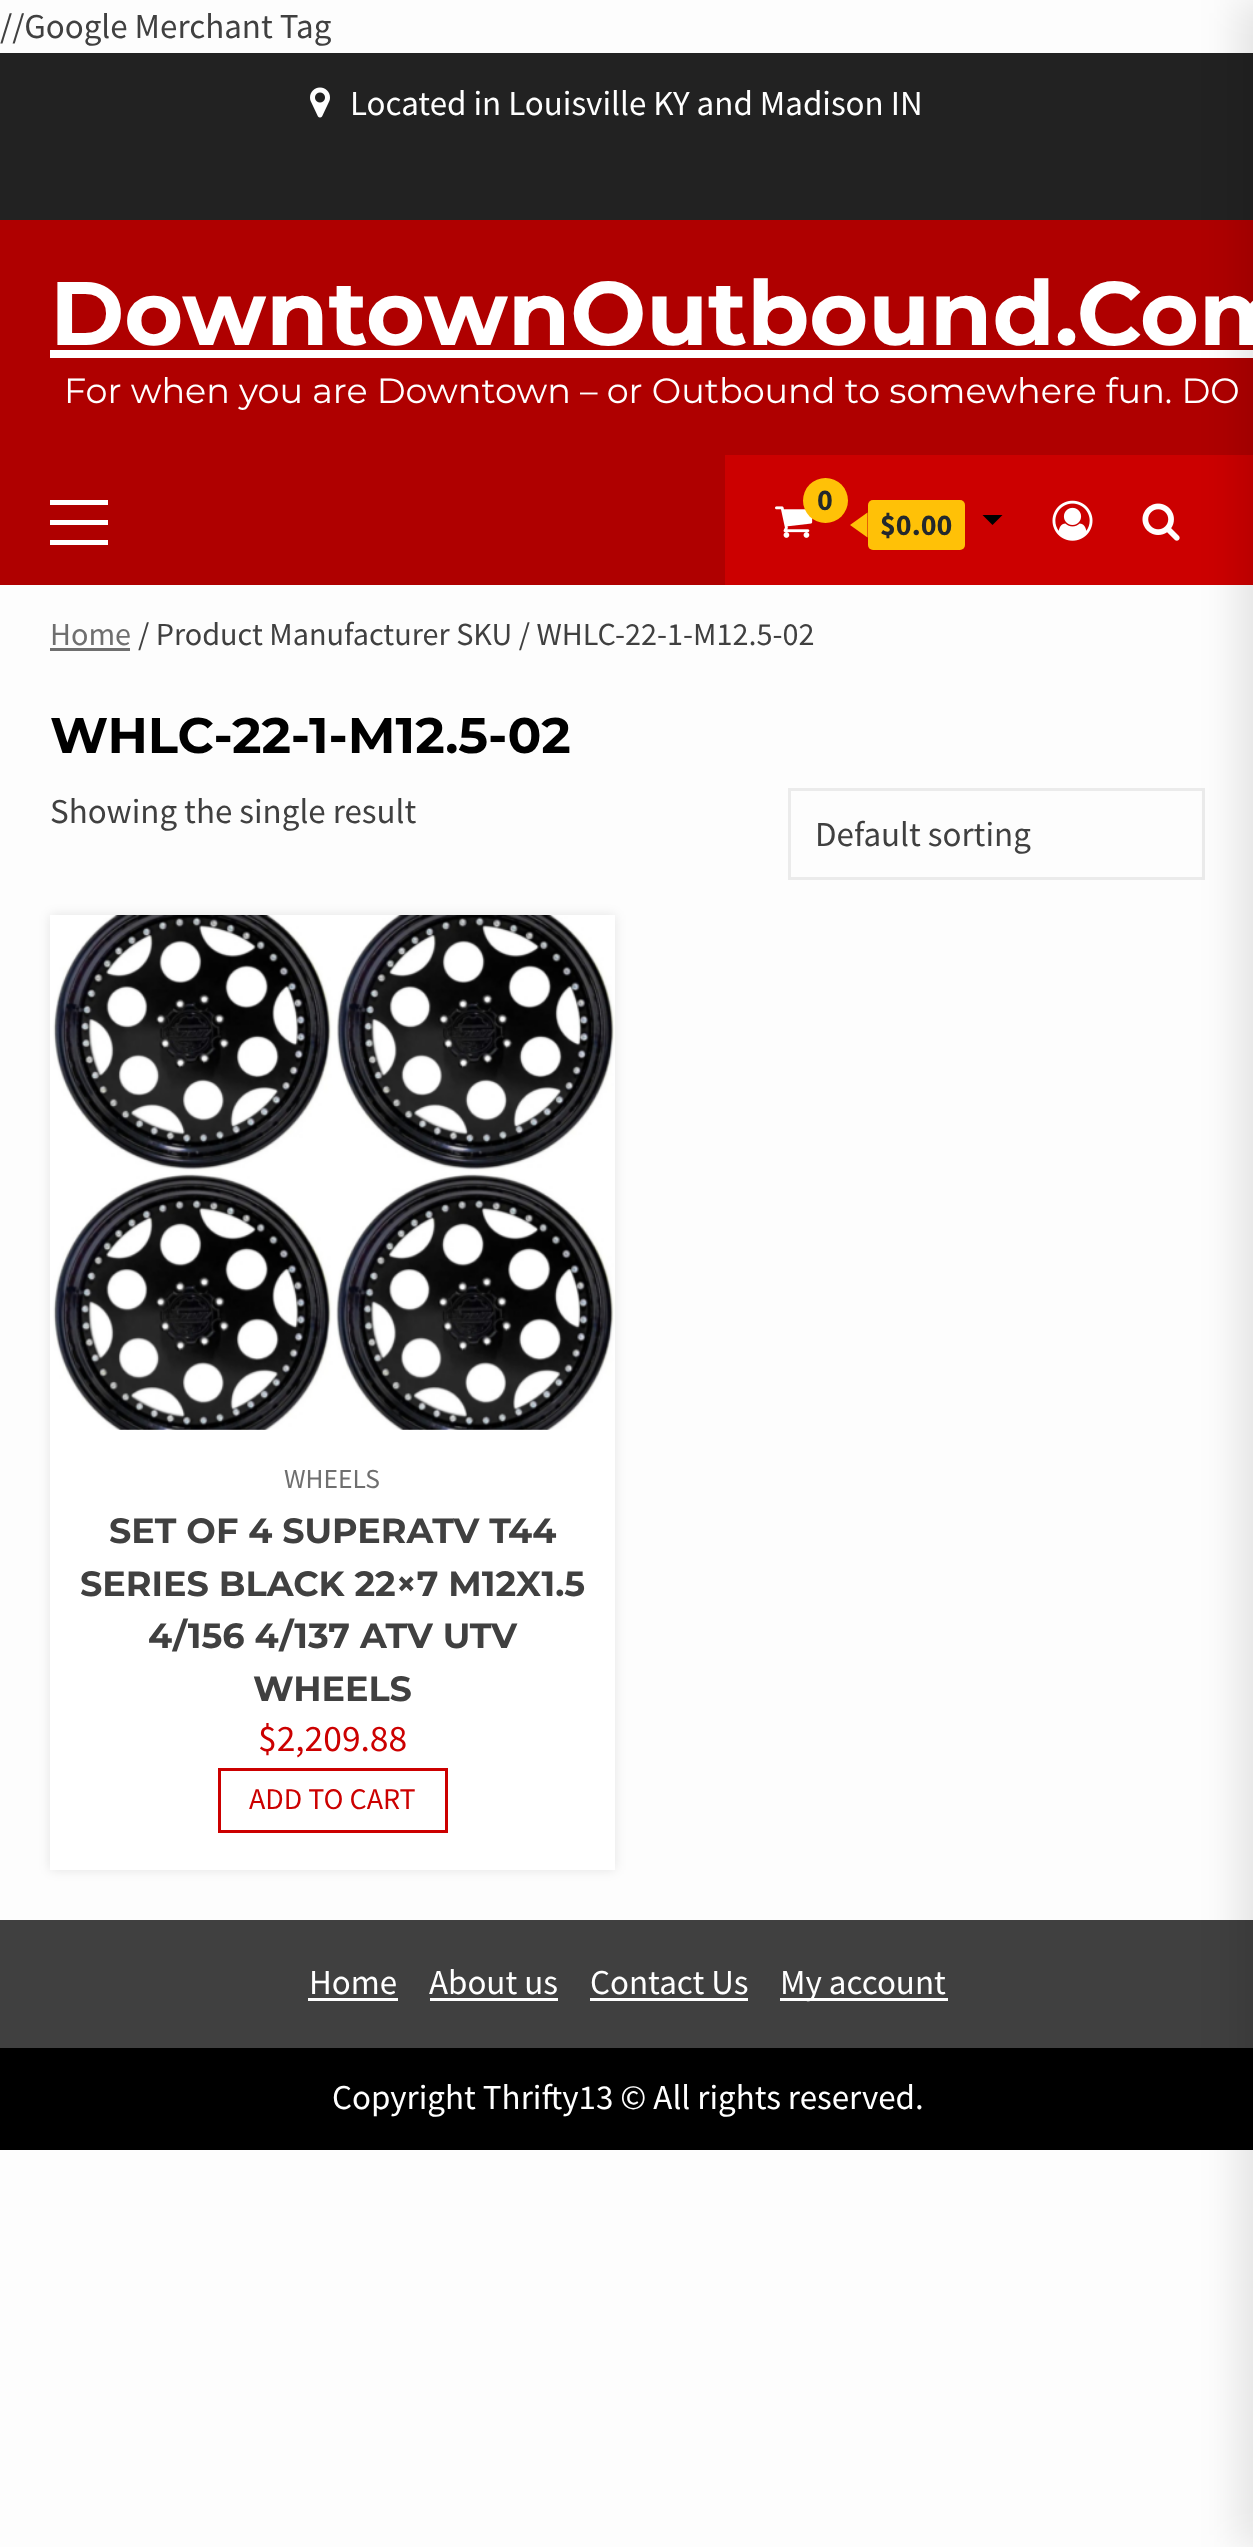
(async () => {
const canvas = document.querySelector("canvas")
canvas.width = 1253
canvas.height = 2547
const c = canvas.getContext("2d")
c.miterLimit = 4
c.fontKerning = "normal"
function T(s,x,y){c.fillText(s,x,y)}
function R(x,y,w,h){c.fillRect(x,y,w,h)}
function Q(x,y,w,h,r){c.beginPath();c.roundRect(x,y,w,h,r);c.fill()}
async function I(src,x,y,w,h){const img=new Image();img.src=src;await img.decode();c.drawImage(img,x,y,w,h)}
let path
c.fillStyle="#fdfdfd"
R(0,0,1253,2547)
c.font="35px Source Sans Pro"
c.fillStyle="#404040"
T("//Google Merchant Tag",0,38)
c.fillStyle="#222"
R(0,53,1253,167)
c.fillStyle="#af0000"
R(0,220,1253,365)
c.fillStyle="#fff"
R(50,350,1203,8)
c.fillStyle="#c00"
R(725,455,528,130)
c.strokeStyle="#ebebeb"
c.lineWidth=3
c.strokeRect(789.5,789.5,414,89)
c.fillStyle="#404040"
R(0,1920,1253,128)
c.fillStyle="#000"
R(0,2048,1253,102)
c.fillStyle="#0000001a"
c.filter="blur(19px)"
c.beginPath()
c.rect(1238,0,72,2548)
c.fill()
c.filter="none"
await I("1.png",310,87,20,31)
c.fillStyle="#fff"
T("Located in Louisville KY and Madison IN",350,115)
c.font="bold 90px Montserrat"
T("DowntownOutbound.Com",50,345)
c.font="35px Montserrat"
T("For when you are Downtown – or Outbound to somewhere fun. DO",64,403)
R(50,520,58,5)
R(50,500,58,5)
R(50,540,58,5)
await I("2.png",775,506,38,32)
c.fillStyle="#ffc107"
c.beginPath()
c.arc(825.5,500.5,22.5,0,7)
c.fill()
c.font="bold 30px Source Sans Pro"
c.fillStyle="#23282d"
T("0",817,510)
c.fillStyle="#ffc107"
Q(868,500,97,50,5)
path = new Path2D("M867.5 512.5v25l-17.5-12.5z")
c.fill(path)
c.fillStyle="#23282d"
T("$0.00",880,535)
c.fillStyle="#000"
path = new Path2D("M982.5 515h20l-10 10z")
c.fill(path)
await I("3.png",1052,500,41,41)
await I("4.png",1142,503,38,38)
c.font="32.2px Source Sans Pro"
c.fillStyle="#6f6f6f"
T("Home",50,645)
R(50,648,80,3)
c.fillStyle="#404040"
T("/ Product Manufacturer SKU / WHLC-22-1-M12.5-02",138,645)
c.font="bold 50px Montserrat"
c.fillStyle="#000"
T("WHLC-22-1-M12.5-02",50,753)
c.font="35px Source Sans Pro"
c.fillStyle="#404040"
T("Showing the single result",50,823)
T("Default sorting",815,846)
c.fillStyle="#0000001a"
c.filter="blur(6px)"
c.beginPath()
c.rect(50,915,565,955)
c.fill()
c.filter="none"
c.fillStyle="#fff"
R(50,915,565,955)
await I("5.png",53,915,562,515)
c.font="27.5px Source Sans Pro"
c.fillStyle="#6f6f6f"
T("WHEELS",284,1488)
c.font="bold 35px Montserrat"
c.fillStyle="#404040"
T("SET OF 4 SUPERATV T44",109,1543)
T("SERIES BLACK 22×7 M12X1.5",80,1596)
T("4/156 4/137 ATV UTV",148,1648)
T("WHEELS",253,1701)
c.font="37.5px Source Sans Pro"
c.fillStyle="#c00"
T("$2,209.88",258,1751)
c.strokeStyle="#c00"
c.strokeRect(219.5,1769.5,227,62)
c.font="30px Source Sans Pro"
T("ADD TO CART",249,1809)
c.font="35px Source Sans Pro"
c.fillStyle="#fff"
T("Home",309,1994)
R(308,1998,90,3)
T("About us",429,1994)
R(430,1998,128,3)
T("Contact Us",590,1994)
R(590,1998,158,3)
R(780,1998,168,3)
T("My account",780,1994)
T("Copyright Thrifty13 © All rights reserved.",332,2109)
})()
